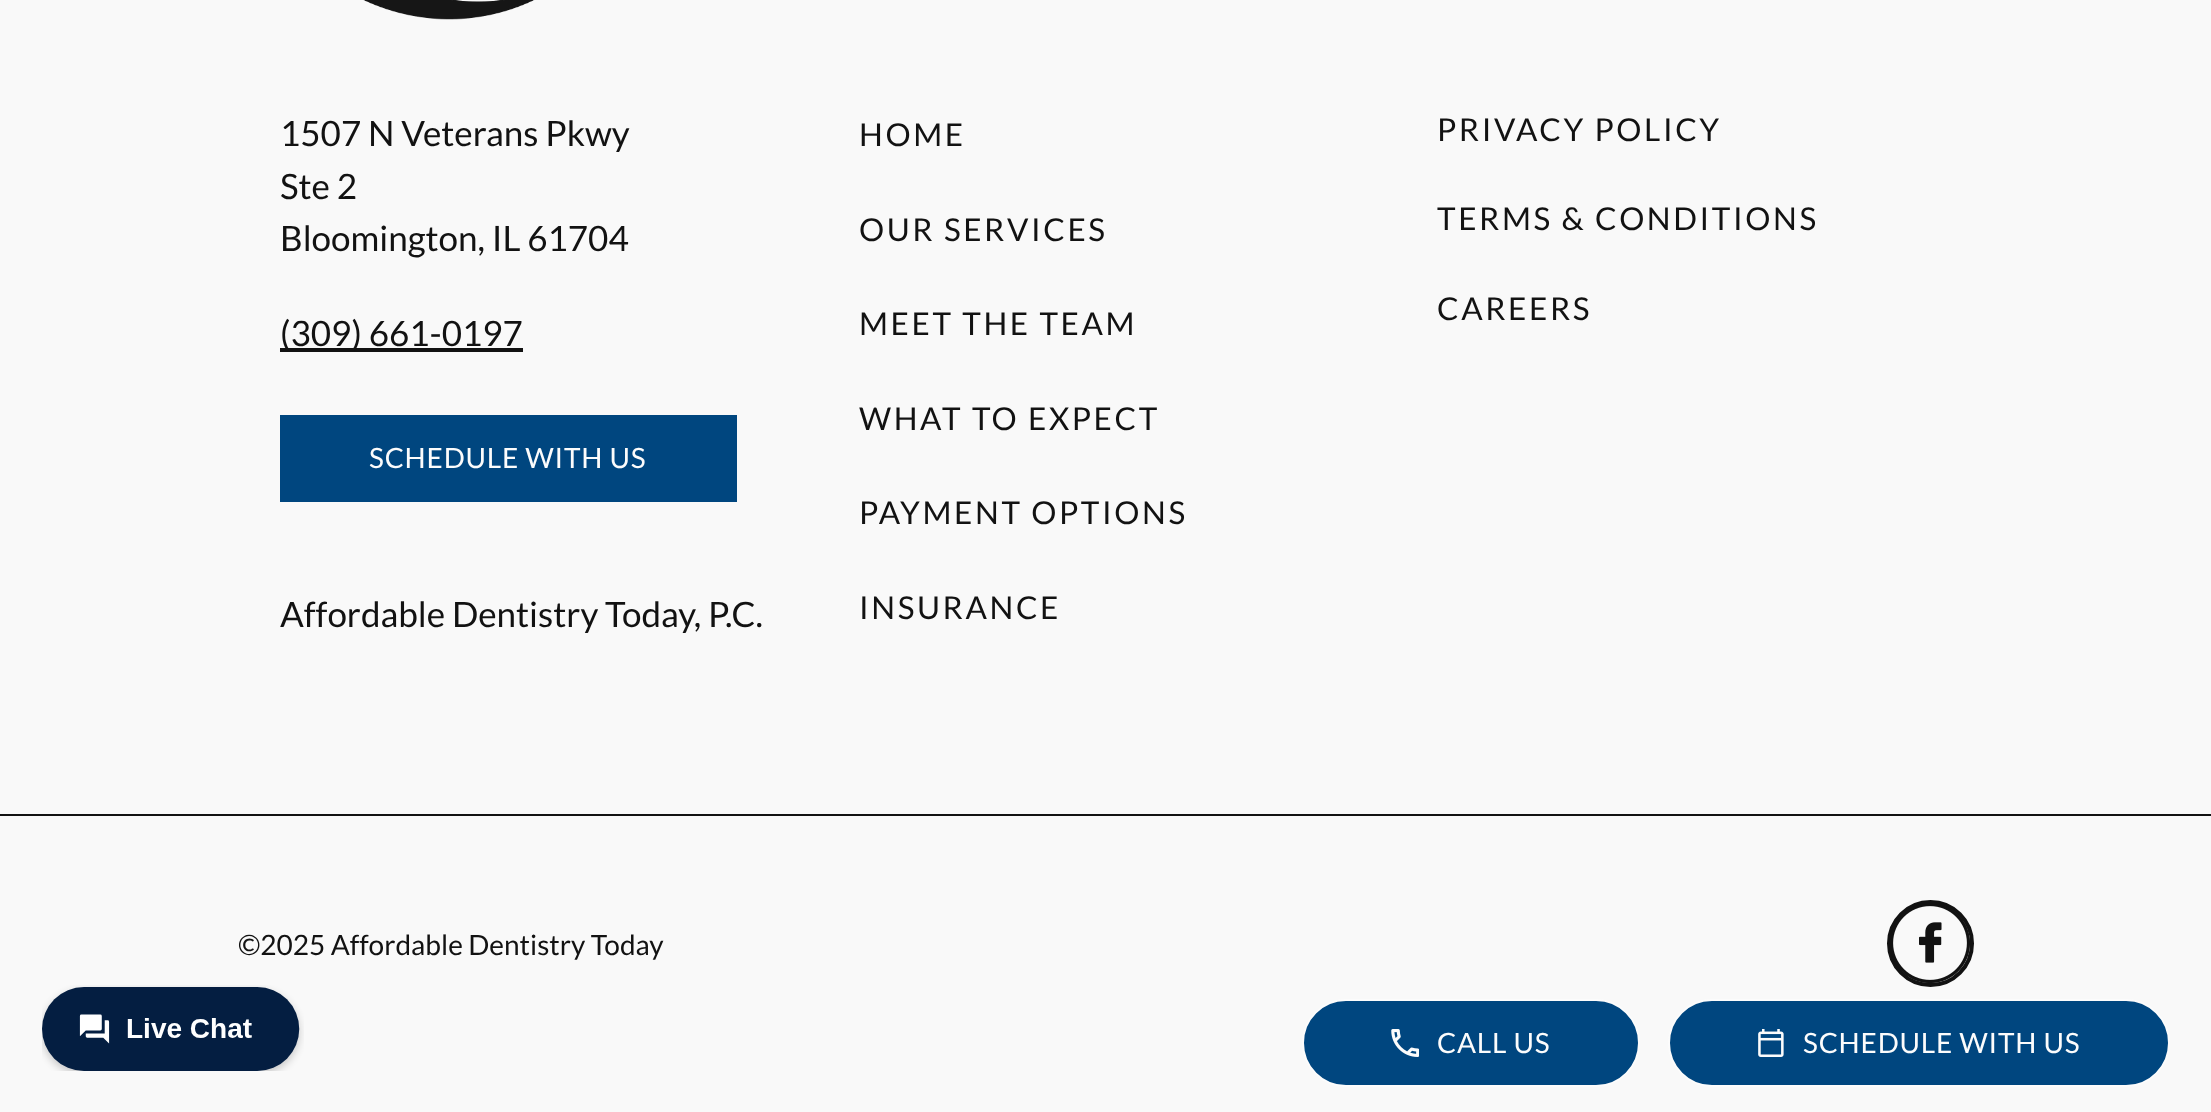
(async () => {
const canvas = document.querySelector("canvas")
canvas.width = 2211
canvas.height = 1112
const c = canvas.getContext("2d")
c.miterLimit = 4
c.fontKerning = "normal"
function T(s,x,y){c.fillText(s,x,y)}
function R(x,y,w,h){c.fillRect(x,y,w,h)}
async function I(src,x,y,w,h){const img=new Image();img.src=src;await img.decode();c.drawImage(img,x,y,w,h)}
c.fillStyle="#f9f9f9"
R(0,0,2211,1112)
await I("1.png",42,985,262,86)
await I("2.png",363,0,172,20)
c.font="35px Lato"
c.fillStyle="#121212"
T("1507 N Veterans Pkwy",280,146)
T("Ste 2",280,199)
T("Bloomington, IL 61704",280,251)
R(280,348,243,4)
T("(309) 661-0197",280,346)
c.fillStyle="#00467f"
R(280,415,457,87)
c.letterSpacing="0.8px"
c.font="28px Lato"
c.fillStyle="#fcfcfc"
T("SCHEDULE WITH US",369,468)
c.letterSpacing="0px"
c.font="35px Lato"
c.fillStyle="#121212"
T("Affordable Dentistry Today, P.C.",280,627)
c.letterSpacing="2.6px"
c.font="31.5px Lato"
T("HOME",859,146)
T("OUR SERVICES",859,241)
T("MEET THE TEAM",859,335)
T("WHAT TO EXPECT",859,430)
T("PAYMENT OPTIONS",859,524)
T("INSURANCE",859,619)
T("PRIVACY POLICY",1437,141)
T("TERMS & CONDITIONS",1437,230)
T("CAREERS",1437,320)
R(0,814,2211,2)
c.letterSpacing="0px"
c.font="28px Lato"
T("©2025 Affordable Dentistry Today",238,955)
c.beginPath()
c.arc(1930.5,943.5,41.5,0,7)
c.strokeStyle="#121212"
c.lineWidth=4
c.stroke()
await I("3.png",1891,904,79,79)
c.fillStyle="#00467f"
c.beginPath()
c.roundRect(1303,1000,336,86,43)
c.fill()
c.strokeStyle="#fcfcfc"
c.lineWidth=2
c.stroke()
await I("4.png",1391,1029,28,28)
c.letterSpacing="0.8px"
c.fillStyle="#fcfcfc"
T("CALL US",1437,1053)
c.fillStyle="#00467f"
c.beginPath()
c.roundRect(1669,1000,500,86,43)
c.fill()
c.stroke()
await I("5.png",1758,1029,26,28)
c.fillStyle="#fcfcfc"
T("SCHEDULE WITH US",1803,1053)
})()
